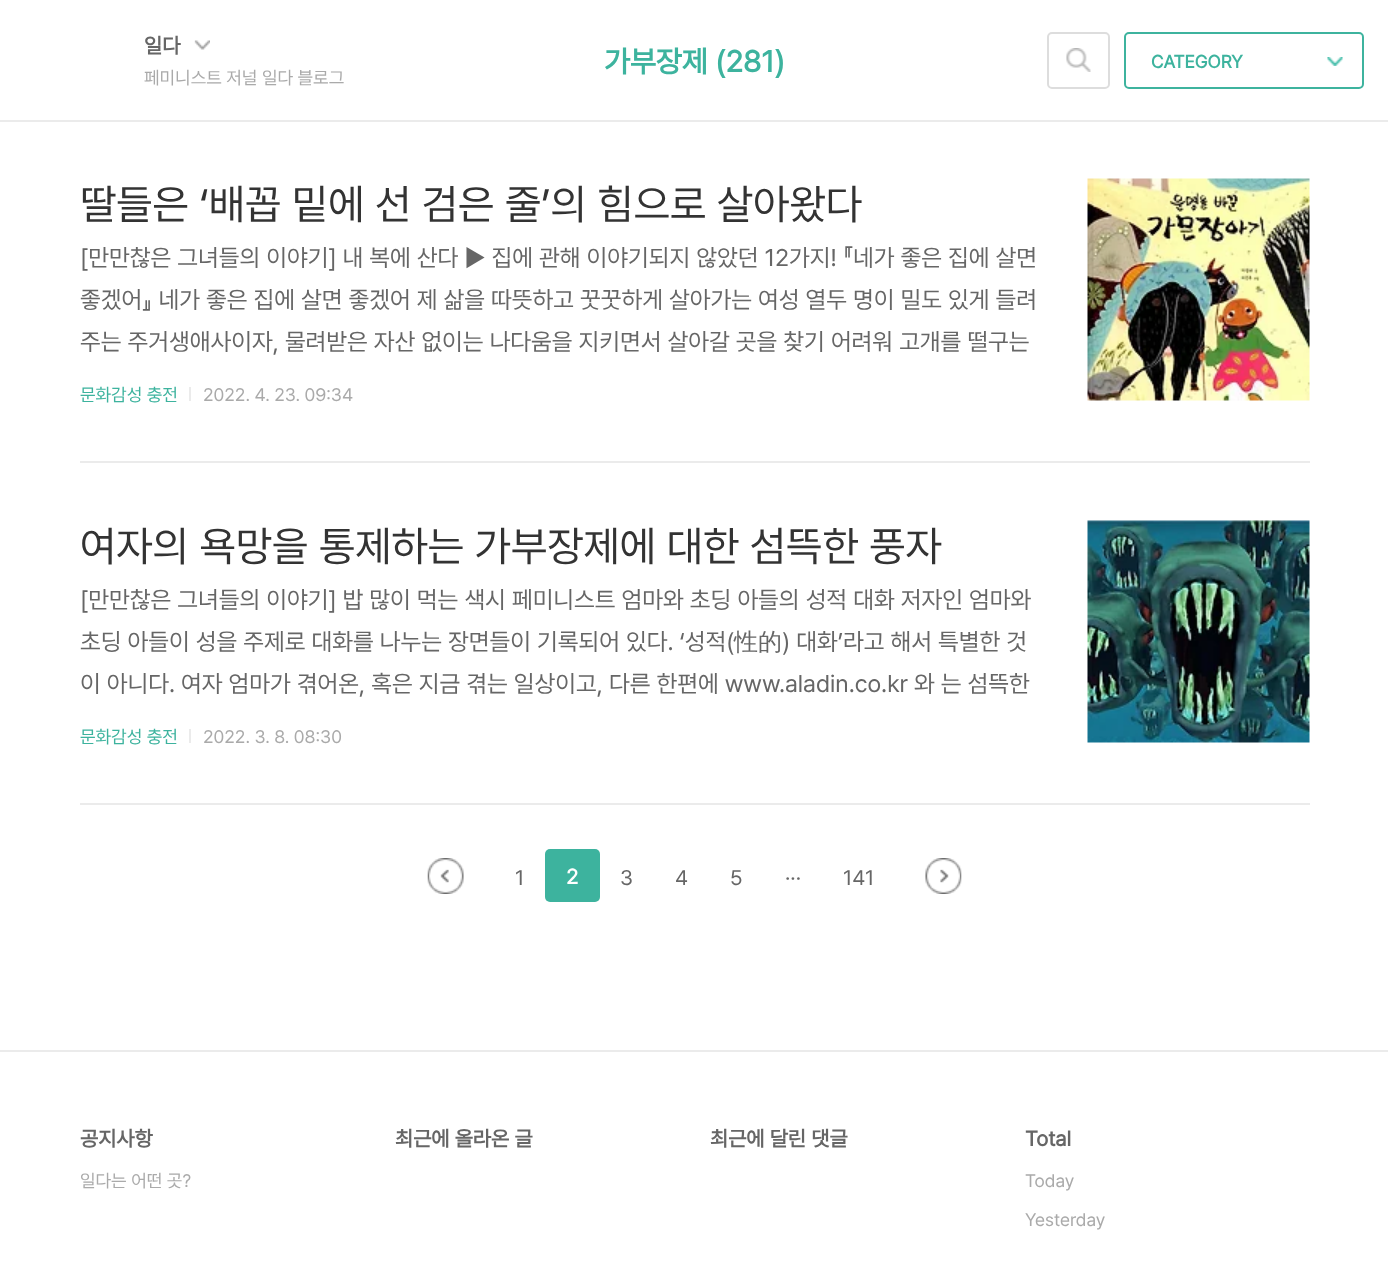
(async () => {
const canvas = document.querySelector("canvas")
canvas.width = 1388
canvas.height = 1264
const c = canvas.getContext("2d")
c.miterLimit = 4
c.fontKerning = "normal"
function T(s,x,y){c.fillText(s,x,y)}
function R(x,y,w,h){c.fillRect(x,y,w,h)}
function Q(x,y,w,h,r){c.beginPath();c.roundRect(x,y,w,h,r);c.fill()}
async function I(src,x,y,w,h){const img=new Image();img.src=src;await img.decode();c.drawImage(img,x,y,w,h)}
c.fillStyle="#fff"
R(0,0,1388,1264)
c.fillStyle="#ebebeb"
R(0,120,1388,2)
c.font="bold 21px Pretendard"
c.fillStyle="#666"
T("일다",144,53)
await I("1.png",194,40,16,10)
c.font="18px Pretendard"
c.fillStyle="#aaa"
T("페미니스트 저널 일다 블로그",144,84)
c.font="bold 30px Pretendard"
c.fillStyle="#3db39e"
T("가부장제 (281)",604,72)
c.beginPath()
c.roundRect(1048,33,61,55,4)
c.strokeStyle="#ddd"
c.lineWidth=2
c.stroke()
await I("2.png",1066,48,25,24)
c.beginPath()
c.roundRect(1125,33,238,55,4)
c.strokeStyle="#3db39e"
c.stroke()
c.font="bold 18px Pretendard"
T("CATEGORY",1151,68)
await I("3.png",1327,57,16,9)
c.fillStyle="#ebebeb"
R(80,461,1230,2)
c.font="42px Pretendard"
c.fillStyle="#333"
T("딸들은 ‘배꼽 밑에 선 검은 줄’의 힘으로 살아왔다",80,219)
c.font="24px Pretendard"
c.fillStyle="#666"
T("[만만찮은 그녀들의 이야기] 내 복에 산다 ▶ 집에 관해 이야기되지 않았던 12가지! 『네가 좋은 집에 살면",80,266)
T("좋겠어』 네가 좋은 집에 살면 좋겠어 제 삶을 따뜻하고 꿋꿋하게 살아가는 여성 열두 명이 밀도 있게 들려",80,308)
T("주는 주거생애사이자, 물려받은 자산 없이는 나다움을 지키면서 살아갈 곳을 찾기 어려워 고개를 떨구는",80,350)
await I("4.png",1087,178,223,223)
c.font="18px Pretendard"
c.fillStyle="#3db39e"
T("문화감성 충전",80,401)
c.fillStyle="#ebebeb"
R(189,387,2,14)
c.fillStyle="#aaa"
T("2022. 4. 23. 09:34",203,401)
c.fillStyle="#ebebeb"
R(80,803,1230,2)
c.font="42px Pretendard"
c.fillStyle="#333"
T("여자의 욕망을 통제하는 가부장제에 대한 섬뜩한 풍자",80,561)
c.font="24px Pretendard"
c.fillStyle="#666"
T("[만만찮은 그녀들의 이야기] 밥 많이 먹는 색시 페미니스트 엄마와 초딩 아들의 성적 대화 저자인 엄마와",80,608)
T("초딩 아들이 성을 주제로 대화를 나누는 장면들이 기록되어 있다. ‘성적(",80,650)
c.font="500 24px WenQuanYi Zen Hei"
T("性的",734,650)
c.font="24px Pretendard"
T(") 대화’라고 해서 특별한 것",782,650)
T("이 아니다. 여자 엄마가 겪어온, 혹은 지금 겪는 일상이고, 다른 한편에 www.aladin.co.kr 와 는 섬뜩한",80,692)
await I("5.png",1087,520,223,223)
c.font="18px Pretendard"
c.fillStyle="#3db39e"
T("문화감성 충전",80,743)
c.fillStyle="#ebebeb"
R(189,729,2,14)
c.fillStyle="#aaa"
T("2022. 3. 8. 08:30",203,743)
await I("6.png",427,858,37,36)
c.font="21px Pretendard"
c.fillStyle="#666"
T("1",515,885)
c.fillStyle="#3db39e"
Q(545,849,55,53,5)
c.font="bold 21px Pretendard"
c.fillStyle="#fff"
T("2",566,884)
c.font="21px Pretendard"
c.fillStyle="#666"
T("3",620,885)
T("4",675,885)
T("5",730,885)
T("···",785,885)
T("141",843,885)
await I("7.png",925,858,37,36)
c.fillStyle="#ebebeb"
R(0,1050,1388,2)
c.font="bold 21px Pretendard"
c.fillStyle="#666"
T("공지사항",80,1146)
c.font="18px Pretendard"
c.fillStyle="#aaa"
T("일다는 어떤 곳?",80,1187)
c.font="bold 21px Pretendard"
c.fillStyle="#666"
T("최근에 올라온 글",395,1146)
T("최근에 달린 댓글",710,1146)
T("Total",1025,1146)
c.font="18px Pretendard"
c.fillStyle="#aaa"
T("Today",1025,1187)
T("Yesterday",1025,1226)
})()
